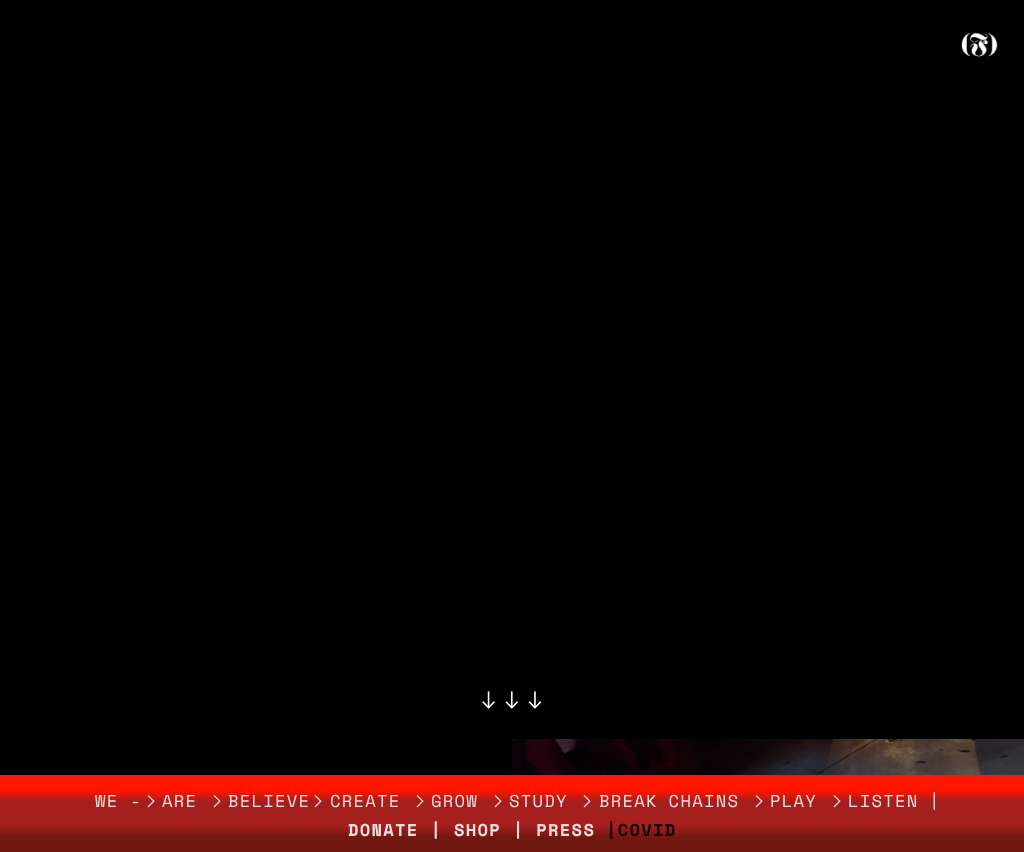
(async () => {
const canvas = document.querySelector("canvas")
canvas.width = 1024
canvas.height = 852
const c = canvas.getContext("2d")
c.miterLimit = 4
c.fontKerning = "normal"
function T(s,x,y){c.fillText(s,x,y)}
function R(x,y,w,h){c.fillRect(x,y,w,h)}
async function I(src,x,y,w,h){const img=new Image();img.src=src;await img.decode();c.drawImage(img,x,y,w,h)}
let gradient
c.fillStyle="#000"
R(0,0,1024,852)
await I("1.png",961,32,37,25)
await I("2.png",482,691,60,18)
await I("3.png",512,739,512,36)
gradient = c.createLinearGradient(512,775,512,852)
gradient.addColorStop(0,"#ff1500")
gradient.addColorStop(.19,"#ff1500")
gradient.addColorStop(.34,"#a51f1f")
gradient.addColorStop(.66,"#a51f1f")
gradient.addColorStop(.81,"#711810")
gradient.addColorStop(1,"#711810")
c.fillStyle = gradient
R(0,775,1024,77)
c.letterSpacing="1.25px"
c.font="17.2px Space Mono"
c.fillStyle="#f3dddd"
T("WE -",95,807)
await I("4.png",147,795,8,13)
T("ARE",162,807)
await I("4.png",213,795,8,13)
T("BELIEVE",228,807)
await I("4.png",314,795,8,13)
T("CREATE",330,807)
await I("4.png",416,795,8,13)
T("GROW",431,807)
await I("4.png",494,795,8,13)
T("STUDY",509,807)
await I("4.png",583,795,8,13)
c.wordSpacing="-1px"
T("BREAK CHAINS",599,807)
await I("4.png",755,795,8,13)
c.wordSpacing="0px"
T("PLAY",770,807)
await I("4.png",833,795,8,13)
T("LISTEN",848,807)
T("|",929,807)
c.font="bold 17.2px Space Mono"
T("DONATE | SHOP | PRESS",348,836)
c.fillStyle="#100101"
T("|COVID",606,836)
})()
